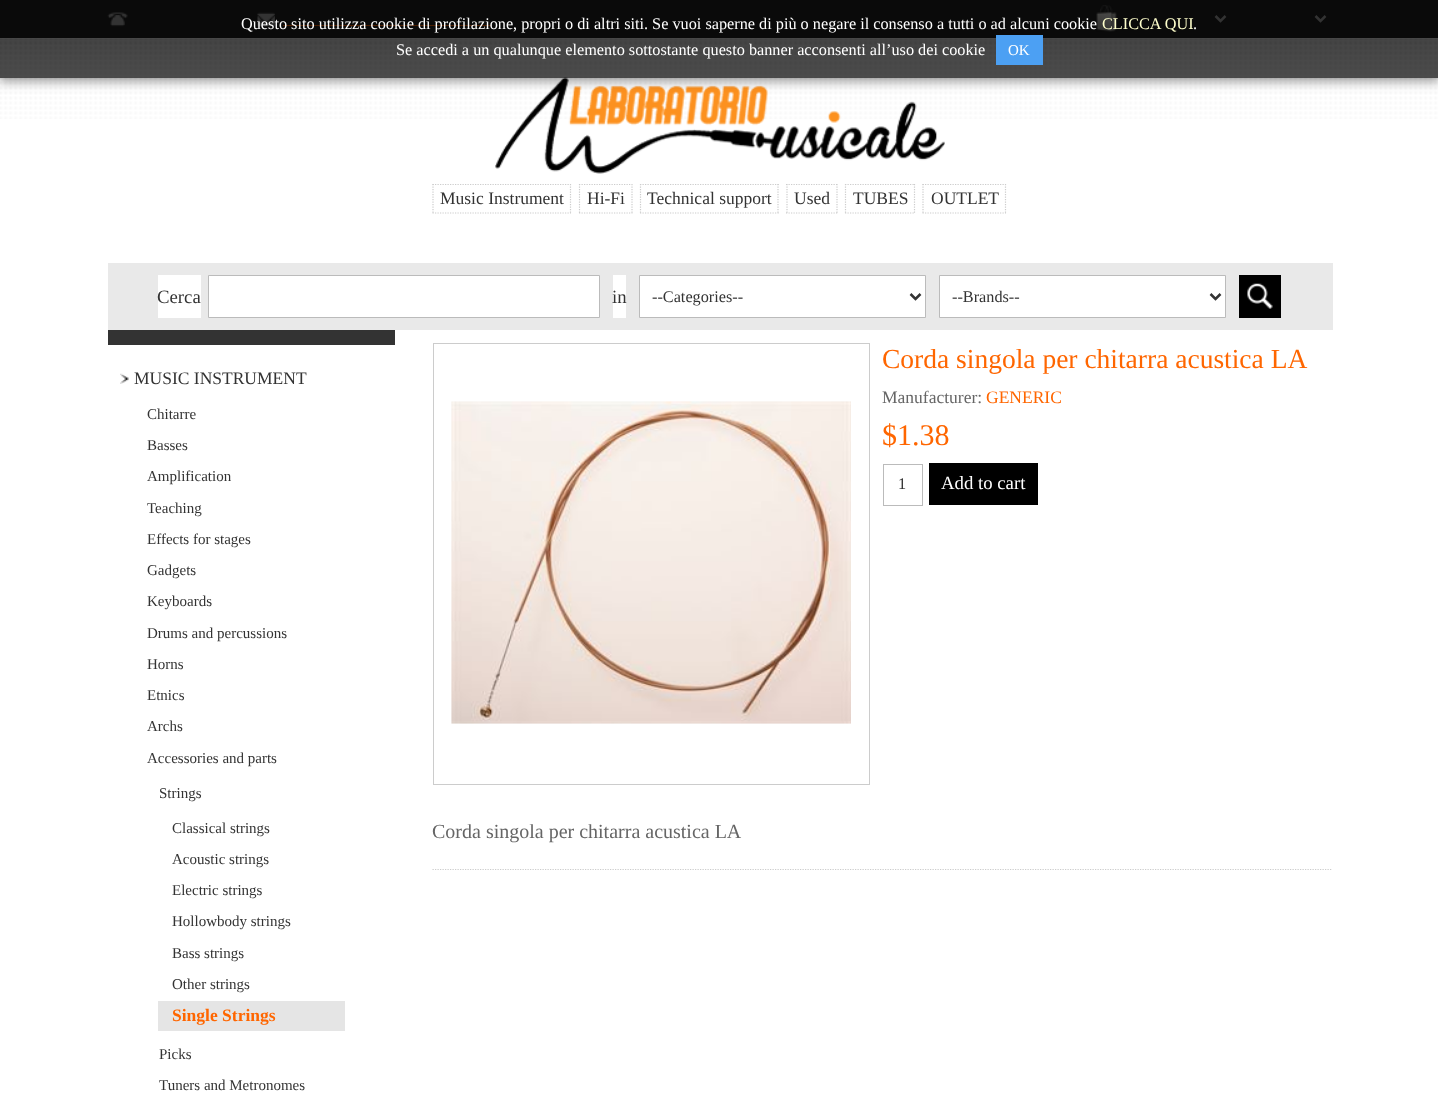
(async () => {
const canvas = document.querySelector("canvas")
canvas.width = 1438
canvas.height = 1110
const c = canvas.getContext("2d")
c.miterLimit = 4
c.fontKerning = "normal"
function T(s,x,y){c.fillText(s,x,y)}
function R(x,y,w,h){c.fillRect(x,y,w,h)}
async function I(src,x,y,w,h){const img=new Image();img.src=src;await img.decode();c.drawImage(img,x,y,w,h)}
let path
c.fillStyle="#fff"
R(0,0,1438,1110)
c.fillStyle="#222"
R(0,0,1438,38)
await I("1.png",107,12,21,15)
await I("2.png",257,12,18,15)
c.fillStyle="#f60"
R(283,25,208,1)
await I("3.png",1096,5,21,27)
path = new Path2D("M1215.5 16l5 5l5-5")
c.strokeStyle="#aaa"
c.lineWidth=2.5
c.stroke(path)
path = new Path2D("M1315.5 16l5 5l5-5")
c.stroke(path)
await I("4.png",0,38,1438,81)
await I("5.png",495,77,450,97)
c.save()
path = new Path2D("M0 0h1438v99h-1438zm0 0h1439v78h-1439z")
c.clip(path,"evenodd")
c.fillStyle="#00000047"
c.filter="blur(5px)"
c.beginPath()
c.rect(0,5,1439,78)
c.fill()
c.filter="none"
c.restore()
c.save()
path = new Path2D("M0 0h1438v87h-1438zm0 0h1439v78h-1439z")
c.clip(path,"evenodd")
c.fillStyle="#00000024"
c.filter="blur(2.5px)"
c.beginPath()
c.rect(0,0,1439,78)
c.fill()
c.filter="none"
c.restore()
c.fillStyle="#000000b3"
R(0,0,1438,78)
c.font="16.25px Liberation Serif"
c.fillStyle="#fff"
T("Questo sito utilizza cookie di profilazione, propri o di altri siti. Se vuoi saperne di più o negare il consenso a tutti o ad alcuni cookie",241,29)
c.fillStyle="#ffc"
T("CLICCA QUI",1102,29)
c.fillStyle="#fff"
T(".",1193,29)
T("Se accedi a un qualunque elemento sottostante questo banner acconsenti all’uso dei cookie",396,55)
c.fillStyle="#4ca0f3"
R(996,35,47,30)
c.font="15px Liberation Serif"
c.fillStyle="#fff"
T("OK",1008,55)
path = new Path2D("M432.5 184.5h138.5")
c.strokeStyle="#ccc"
c.lineWidth=1.2
c.setLineDash([1.25,1.25])
c.stroke(path)
path = new Path2D("M570.5 184v30")
c.stroke(path)
path = new Path2D("M432.5 213h138.5")
c.stroke(path)
path = new Path2D("M433 184v30")
c.stroke(path)
c.font="17.5px Liberation Serif"
c.fillStyle="#333"
T("Music Instrument",440,204)
path = new Path2D("M579 184.5h53.5m-.5-.5v30m-53-1h53.5m-53-29v30")
c.stroke(path)
T("Hi-Fi",587,204)
path = new Path2D("M640 184.5h139")
c.stroke(path)
path = new Path2D("M778 184v30")
c.stroke(path)
path = new Path2D("M640 213h139")
c.stroke(path)
path = new Path2D("M640.5 184v30")
c.stroke(path)
T("Technical support",647,204)
path = new Path2D("M786 184.5h51.5m-.5-.5v30m-51-1h51.5m-50.5-29v30")
c.stroke(path)
T("Used",794,204)
path = new Path2D("M845 184.5h70")
c.stroke(path)
path = new Path2D("M914.5 184v30")
c.stroke(path)
path = new Path2D("M845 213h70")
c.stroke(path)
path = new Path2D("M845.5 184v30")
c.stroke(path)
T("TUBES",853,204)
path = new Path2D("M922.5 184.5h83.5")
c.stroke(path)
path = new Path2D("M1005.5 184v30")
c.stroke(path)
path = new Path2D("M922.5 213h83.5")
c.stroke(path)
path = new Path2D("M923 184v30")
c.stroke(path)
T("OUTLET",931,204)
c.fillStyle="#e9e9e9"
R(108,263,1225,67)
c.fillStyle="#fff"
R(158,275,43,43)
R(613,275,13,43)
c.font="18.75px Liberation Serif"
c.fillStyle="#333"
T("Cerca",157,303)
c.fillStyle="#fff"
c.beginPath()
c.rect(208.5,275.5,391,42)
c.fill()
c.strokeStyle="#bbb"
c.lineWidth=1
c.setLineDash([])
c.stroke()
c.fillStyle="#333"
T("in",612,303)
c.fillStyle="#fff"
c.beginPath()
c.rect(639.5,275.5,286,42)
c.fill()
c.stroke()
path = new Path2D("M910.5 294l5 5l5-5")
c.strokeStyle="#333"
c.lineWidth=2.5
c.stroke(path)
c.font="16.25px Liberation Serif"
c.fillStyle="#333"
T("--Categories--",652,302)
c.fillStyle="#fff"
c.beginPath()
c.rect(939.5,275.5,286,42)
c.fill()
c.strokeStyle="#bbb"
c.lineWidth=1
c.stroke()
path = new Path2D("M1210.5 294l5 5l5-5")
c.strokeStyle="#333"
c.lineWidth=2.5
c.stroke(path)
c.fillStyle="#333"
T("--Brands--",952,302)
c.fillStyle="#000"
R(1239,275,42,43)
await I("6.png",1247,283,26,26)
c.fillStyle="#333"
R(108,330,287,15)
await I("7.png",120,373,9,11)
c.font="17.5px Liberation Serif"
T("MUSIC INSTRUMENT",134,384)
c.font="15px Liberation Serif"
T("Chitarre",147,419)
T("Basses",147,450)
T("Amplification",147,481)
T("Teaching",147,513)
T("Effects for stages",147,544)
T("Gadgets",147,575)
T("Keyboards",147,606)
T("Drums and percussions",147,638)
T("Horns",147,669)
T("Etnics",147,700)
T("Archs",147,731)
T("Accessories and parts",147,763)
T("Strings",159,798)
T("Classical strings",172,833)
T("Acoustic strings",172,864)
T("Electric strings",172,895)
T("Hollowbody strings",172,926)
T("Bass strings",172,958)
T("Other strings",172,989)
c.fillStyle="#e5e5e5"
R(158,1001,187,30)
c.font="bold 17.5px Liberation Serif"
c.fillStyle="#f60"
T("Single Strings",172,1021)
c.font="15px Liberation Serif"
c.fillStyle="#333"
T("Picks",159,1059)
T("Tuners and Metronomes",159,1090)
path = new Path2D("M432.5 869.5h900")
c.strokeStyle="#ccc"
c.lineWidth=1.2
c.setLineDash([1.25,1.25])
c.stroke(path)
c.lineWidth=1
c.setLineDash([])
c.strokeRect(433.5,343.5,436,441)
await I("8.png",451,401,400,323)
c.font="27.5px Liberation Serif"
c.fillStyle="#f60"
T("Corda singola per chitarra acustica LA",882,368)
c.font="17.5px Liberation Serif"
c.fillStyle="#666"
T("Manufacturer:",882,403)
c.fillStyle="#f60"
T("GENERIC",986,403)
c.font="30px Liberation Serif"
T("$1.38",882,445)
c.strokeStyle="#bbb"
c.strokeRect(883.5,464.5,39,41)
c.font="16.25px Liberation Serif"
c.fillStyle="#333"
T("1",898,489)
c.fillStyle="#000"
R(929,463,109,42)
c.font="18.75px Liberation Serif"
c.fillStyle="#fff"
T("Add to cart",941,489)
c.font="20px Liberation Serif"
c.fillStyle="#666"
T("Corda singola per chitarra acustica LA",432,838)
})()
